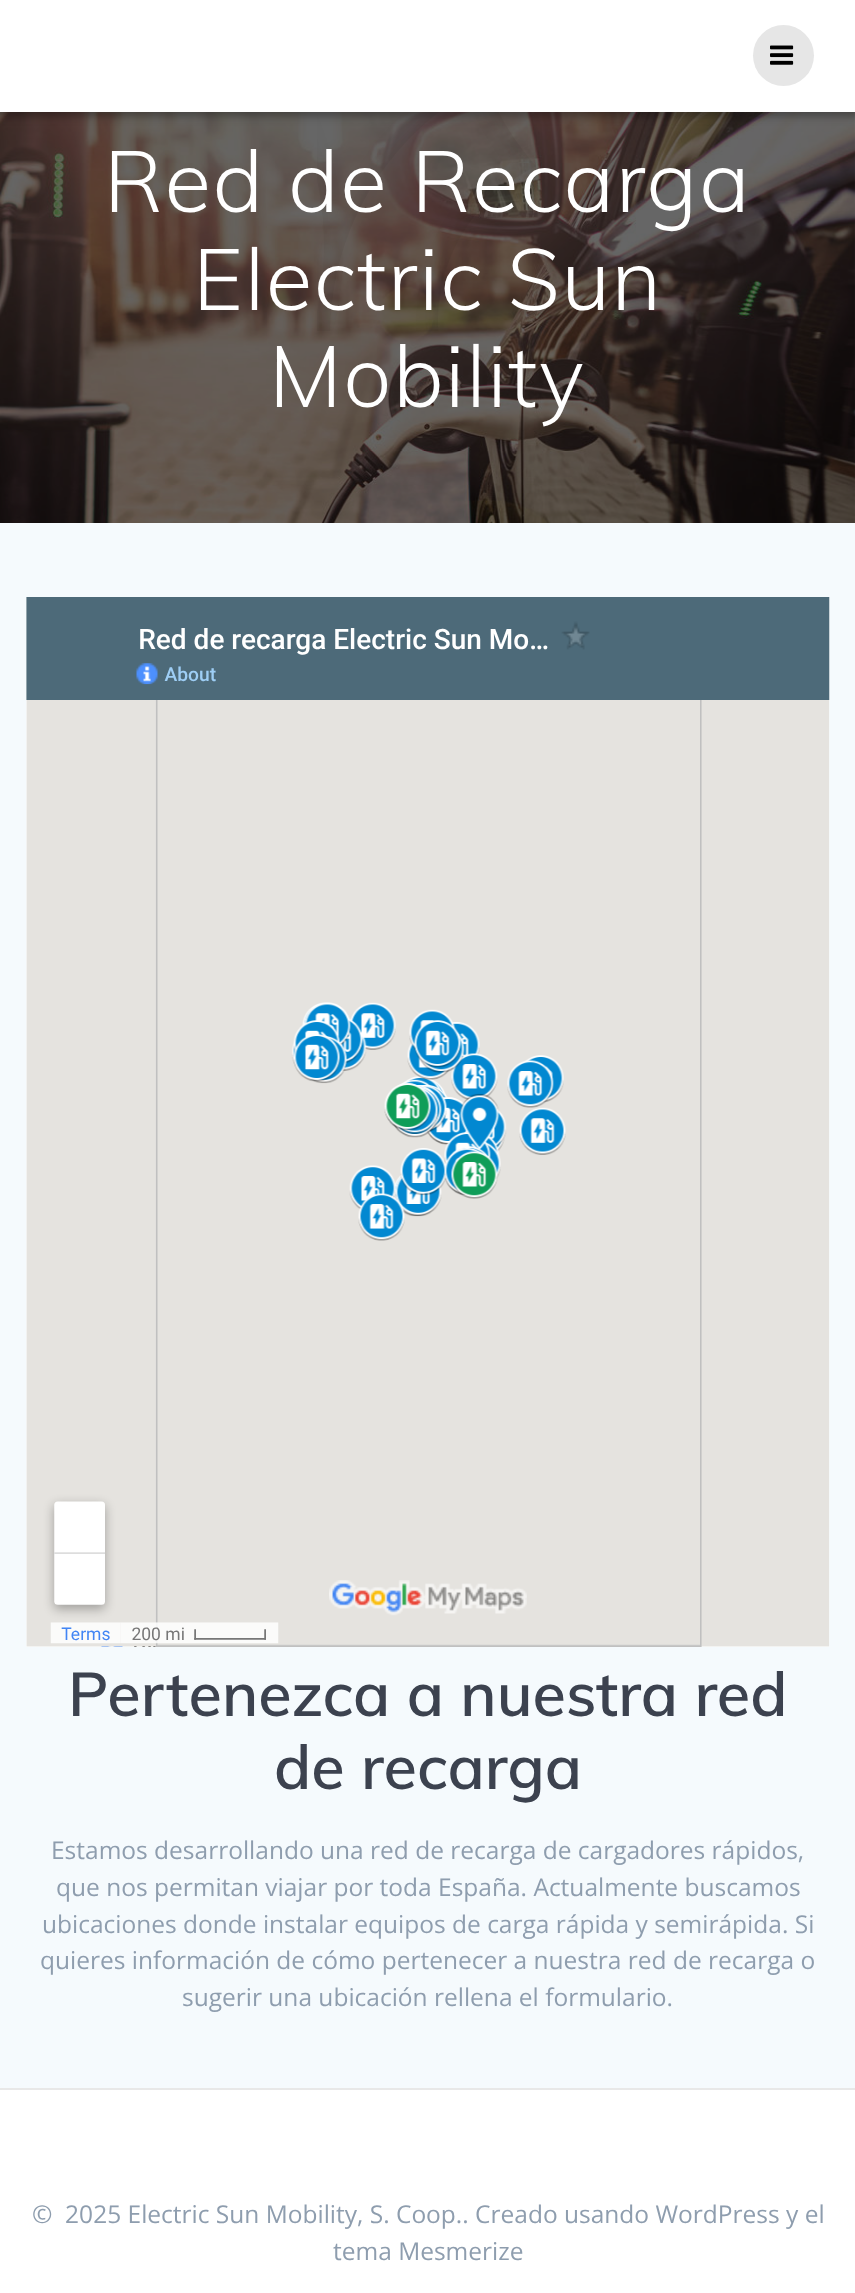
(async () => {
const canvas = document.querySelector("canvas")
canvas.width = 855
canvas.height = 2293
const c = canvas.getContext("2d")
c.miterLimit = 4
c.fontKerning = "normal"
function T(s,x,y){c.fillText(s,x,y)}
function R(x,y,w,h){c.fillRect(x,y,w,h)}
async function I(src,x,y,w,h){const img=new Image();img.src=src;await img.decode();c.drawImage(img,x,y,w,h)}
c.fillStyle="#fff"
R(0,0,855,2293)
await I("2.png",0,112,855,411)
await I("3.png",317,112,219,219)
c.fillStyle="#00000054"
c.filter="blur(4.5px)"
c.beginPath()
c.rect(-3,-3,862,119)
c.fill()
c.filter="none"
c.fillStyle="#fff"
R(0,0,855,112)
c.fillStyle="#e6e6e6"
c.beginPath()
c.arc(783.5,55.5,30.5,0,7)
c.fill()
await I("1.png",770,45,24,20)
c.letterSpacing="1.5px"
c.font="300 85.75px Muli"
c.fillStyle="#fff"
T("Red de Recarga",104,212)
T("Electric Sun",193,310)
T("Mobility",269,407)
c.fillStyle="#f5fafd"
R(0,523,855,1565)
await I("4.png",26,597,804,1050)
c.letterSpacing="0px"
c.font="600 61.25px Muli"
c.fillStyle="#3c424f"
T("Pertenezca a nuestra red",68,1716)
T("de recarga",274,1789)
c.font="24.5px Open Sans"
c.fillStyle="#8e9dae"
T("Estamos desarrollando una red de recarga de cargadores rápidos,",51,1859)
T("que nos permitan viajar por toda España. Actualmente buscamos",56,1896)
T("ubicaciones donde instalar equipos de carga rápida y semirápida. Si",42,1933)
T("quieres información de cómo pertenecer a nuestra red de recarga o",40,1969)
T("sugerir una ubicación rellena el formulario.",182,2006)
c.fillStyle="#e8e8e8"
R(0,2088,855,2)
c.fillStyle="#8e9dae"
T("©  2025 Electric Sun Mobility, S. Coop.. Creado usando WordPress y el",32,2223)
T("tema Mesmerize",333,2260)
})()
